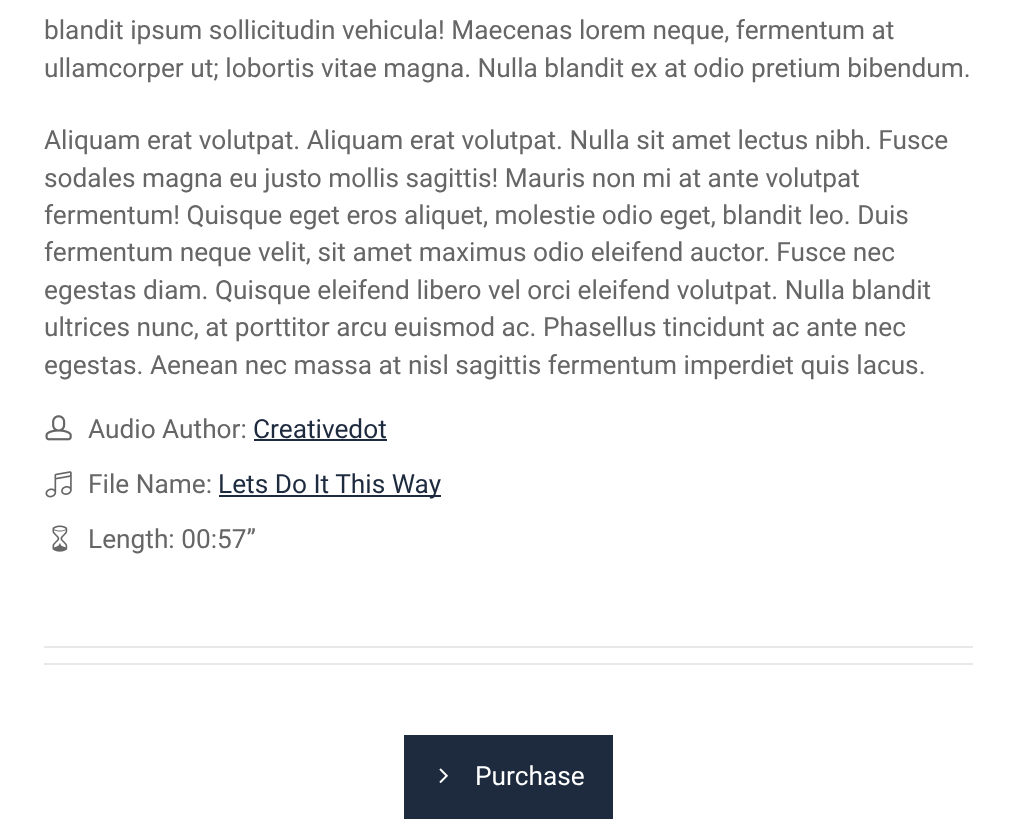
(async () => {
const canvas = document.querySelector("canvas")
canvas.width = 1016
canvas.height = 836
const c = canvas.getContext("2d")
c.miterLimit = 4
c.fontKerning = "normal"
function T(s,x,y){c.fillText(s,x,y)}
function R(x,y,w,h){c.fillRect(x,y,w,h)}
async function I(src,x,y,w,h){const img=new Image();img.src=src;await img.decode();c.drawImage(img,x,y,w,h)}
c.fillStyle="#fff"
R(0,0,1016,836)
c.font="26.25px Roboto"
c.fillStyle="#666"
T("blandit ipsum sollicitudin vehicula! Maecenas lorem neque, fermentum at",44,39)
T("ullamcorper ut; lobortis vitae magna. Nulla blandit ex at odio pretium bibendum.",44,77)
T("Aliquam erat volutpat. Aliquam erat volutpat. Nulla sit amet lectus nibh. Fusce",44,149)
T("sodales magna eu justo mollis sagittis! Mauris non mi at ante volutpat",44,187)
T("fermentum! Quisque eget eros aliquet, molestie odio eget, blandit leo. Duis",44,224)
T("fermentum neque velit, sit amet maximus odio eleifend auctor. Fusce nec",44,261)
T("egestas diam. Quisque eleifend libero vel orci eleifend volutpat. Nulla blandit",44,299)
T("ultrices nunc, at porttitor arcu euismod ac. Phasellus tincidunt ac ante nec",44,336)
T("egestas. Aenean nec massa at nisl sagittis fermentum imperdiet quis lacus.",44,374)
await I("1.png",45,415,27,26)
T("Audio Author:",88,438)
c.fillStyle="#1e2b3f"
T("Creativedot",253,438)
R(254,439,133,2)
await I("2.png",45,471,27,27)
c.fillStyle="#666"
T("File Name:",88,493)
c.fillStyle="#1e2b3f"
R(219,495,222,2)
T("Lets Do It This Way",218,493)
await I("3.png",52,525,16,27)
c.fillStyle="#666"
T("Length: 00:57”",88,548)
c.fillStyle="#e8e8e8"
R(44,663,929,2)
R(44,646,929,2)
c.fillStyle="#1e2b3f"
R(404,735,209,84)
await I("4.png",439,768,9,15)
c.fillStyle="#fff"
T("Purchase",475,785)
})()
